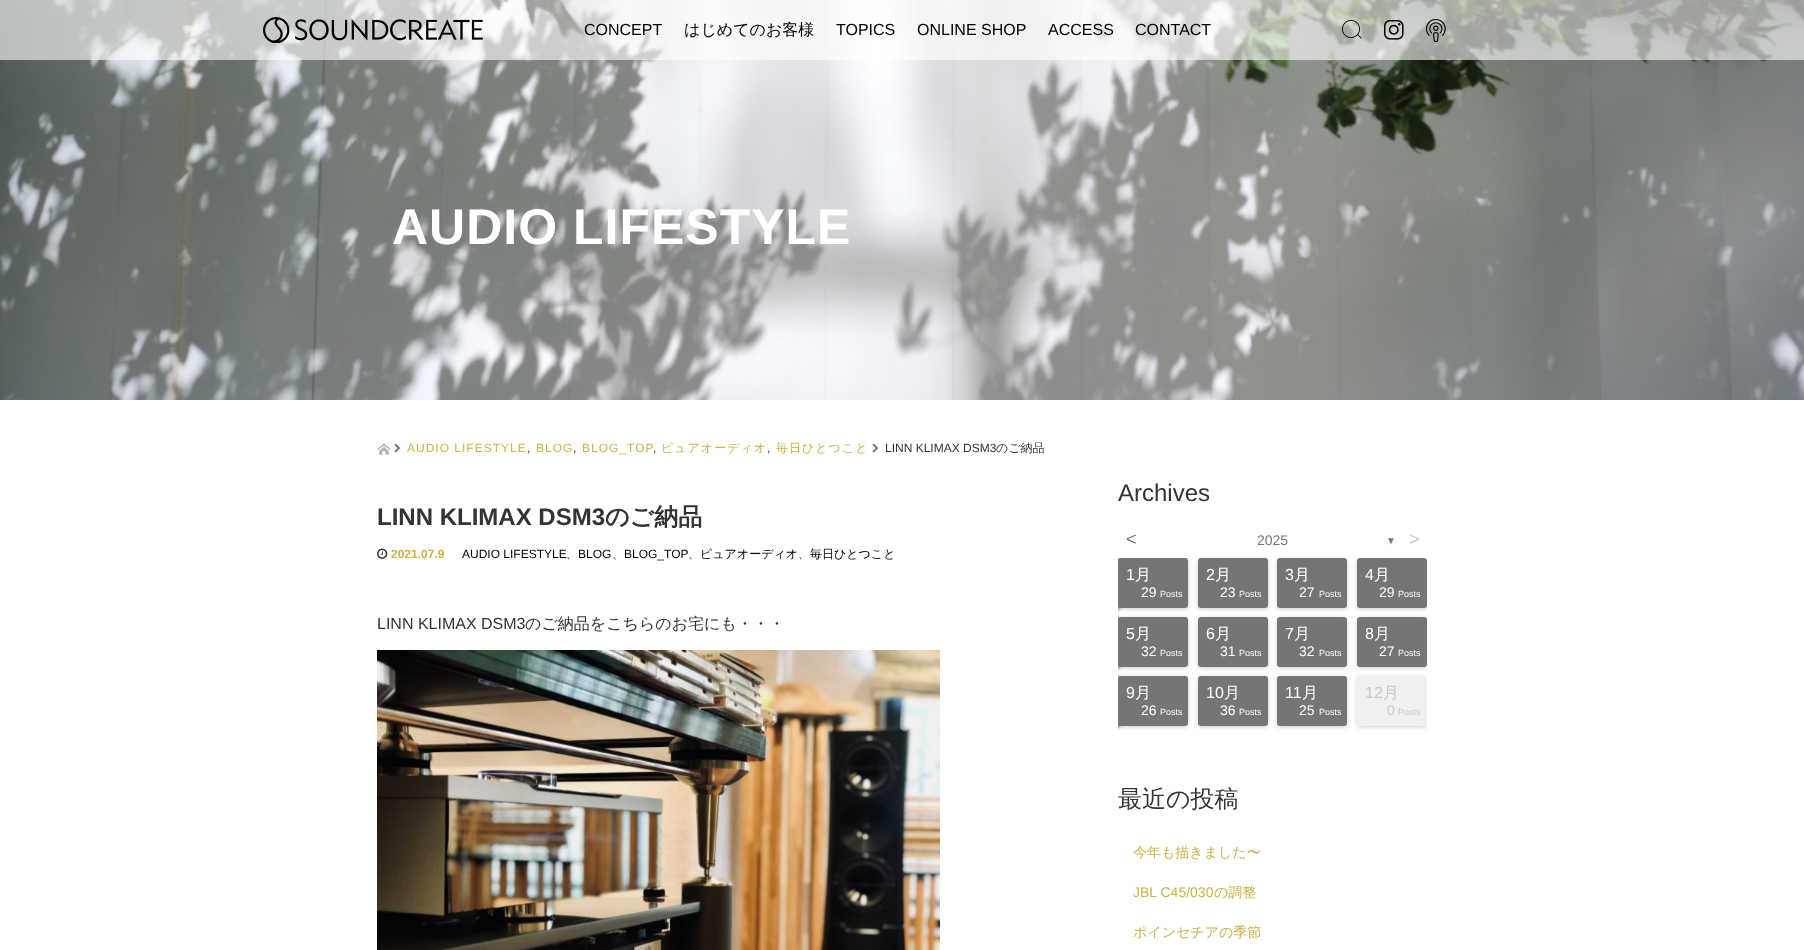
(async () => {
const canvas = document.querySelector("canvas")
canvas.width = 1804
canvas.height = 950
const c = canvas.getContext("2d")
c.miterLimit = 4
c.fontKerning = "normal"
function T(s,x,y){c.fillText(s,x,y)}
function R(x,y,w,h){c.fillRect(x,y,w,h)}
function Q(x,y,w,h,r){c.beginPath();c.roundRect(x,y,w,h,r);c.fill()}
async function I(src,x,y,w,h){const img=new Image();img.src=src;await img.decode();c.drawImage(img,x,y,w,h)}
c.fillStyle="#fff"
R(0,0,1804,950)
await I("1.png",0,0,1804,400)
c.fillStyle="#ffffff99"
R(0,0,1804,60)
await I("2.png",263,17,220,26)
c.font="16px Liberation Sans"
c.fillStyle="#000"
T("CONCEPT",584,35)
c.font="500 16px WenQuanYi Zen Hei"
T("はじめてのお客様",684,35)
c.font="16px Liberation Sans"
T("TOPICS",836,35)
T("ONLINE SHOP",917,35)
T("ACCESS",1048,35)
T("CONTACT",1135,35)
await I("3.png",1342,20,20,19)
await I("4.png",1384,20,20,20)
await I("5.png",1426,19,20,23)
c.letterSpacing="1px"
c.font="bold 50px Liberation Sans"
c.fillStyle="#fff"
T("AUDIO LIFESTYLE",392,244)
await I("6.png",377,443,14,12)
await I("7.png",394,443,7,10)
c.font="12px Liberation Sans"
c.fillStyle="#ccb143"
T("AUDIO LIFESTYLE",407,452)
c.fillStyle="#333"
T(",",527,452)
c.fillStyle="#ccb143"
T("BLOG",536,452)
c.fillStyle="#333"
T(",",573,452)
c.fillStyle="#ccb143"
T("BLOG_TOP",582,452)
c.fillStyle="#333"
T(",",653,452)
c.font="500 12px WenQuanYi Zen Hei"
c.fillStyle="#ccb143"
T("ピュアオーディオ",661,452)
c.font="12px Liberation Sans"
c.fillStyle="#333"
T(",",767,452)
c.font="500 12px WenQuanYi Zen Hei"
c.fillStyle="#ccb143"
T("毎日ひとつこと",776,452)
await I("7.png",872,443,7,10)
c.letterSpacing="0px"
c.font="12px Liberation Sans"
c.fillStyle="#333"
T("LINN KLIMAX DSM3",885,452)
c.font="500 12px WenQuanYi Zen Hei"
T("のご納品",996,452)
c.font="bold 24px Liberation Sans"
T("LINN KLIMAX DSM3",377,525)
c.font="bold 24px WenQuanYi Zen Hei"
T("のご納品",605,525)
await I("8.png",377,548,11,11)
c.font="bold 12px Liberation Sans"
c.fillStyle="#ccb143"
T("2021.07.9",391,558)
c.font="12px Liberation Sans"
c.fillStyle="#000"
T("AUDIO LIFESTYLE",462,558)
c.font="500 12px WenQuanYi Zen Hei"
c.fillStyle="#333"
T("、",566,558)
c.font="12px Liberation Sans"
c.fillStyle="#000"
T("BLOG",578,558)
c.font="500 12px WenQuanYi Zen Hei"
c.fillStyle="#333"
T("、",612,558)
c.font="12px Liberation Sans"
c.fillStyle="#000"
T("BLOG_TOP",624,558)
c.font="500 12px WenQuanYi Zen Hei"
c.fillStyle="#333"
T("、",688,558)
c.fillStyle="#000"
T("ピュアオーディオ",700,558)
c.fillStyle="#333"
T("、",798,558)
c.fillStyle="#000"
T("毎日ひとつこと",810,558)
c.font="16px Liberation Sans"
c.fillStyle="#333"
T("LINN KLIMAX DSM3",377,629)
c.font="500 16px WenQuanYi Zen Hei"
T("のご納品をこちらのお宅にも・・・",525,629)
await I("9.png",377,650,563,300)
c.font="24px Liberation Sans"
T("Archives",1118,501)
c.font="18px Liberation Sans"
c.fillStyle="#757575"
T("<",1126,545)
c.font="14px Liberation Sans"
T("2025",1257,545)
c.font="10px Liberation Sans"
T("▼",1386,544)
c.font="18px Liberation Sans"
c.fillStyle="#c8c8c8"
T(">",1409,545)
c.save()
c.beginPath()
c.rect(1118,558,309,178)
c.clip()
c.fillStyle="#00000033"
c.filter="blur(2px)"
c.beginPath()
c.roundRect(1048,559,70,50,3)
c.fill()
c.filter="none"
c.filter="blur(2px)"
c.beginPath()
c.roundRect(1048,618,70,50,3)
c.fill()
c.filter="none"
c.filter="blur(2px)"
c.beginPath()
c.roundRect(1048,677,70,50,3)
c.fill()
c.filter="none"
c.filter="blur(2px)"
c.beginPath()
c.roundRect(1048,559,70,50,3)
c.fill()
c.filter="none"
c.filter="blur(2px)"
c.beginPath()
c.roundRect(1048,618,70,50,3)
c.fill()
c.filter="none"
c.filter="blur(2px)"
c.beginPath()
c.roundRect(1048,677,70,50,3)
c.fill()
c.filter="none"
c.filter="blur(2px)"
c.beginPath()
c.roundRect(1048,559,70,50,3)
c.fill()
c.filter="none"
c.filter="blur(2px)"
c.beginPath()
c.roundRect(1048,618,70,50,3)
c.fill()
c.filter="none"
c.filter="blur(2px)"
c.beginPath()
c.roundRect(1048,677,70,50,3)
c.fill()
c.filter="none"
c.filter="blur(2px)"
c.beginPath()
c.roundRect(1048,559,70,50,3)
c.fill()
c.filter="none"
c.filter="blur(2px)"
c.beginPath()
c.roundRect(1048,618,70,50,3)
c.fill()
c.filter="none"
c.filter="blur(2px)"
c.beginPath()
c.roundRect(1048,677,70,50,3)
c.fill()
c.filter="none"
c.filter="blur(2px)"
c.beginPath()
c.roundRect(1048,559,70,50,3)
c.fill()
c.filter="none"
c.filter="blur(2px)"
c.beginPath()
c.roundRect(1048,618,70,50,3)
c.fill()
c.filter="none"
c.filter="blur(2px)"
c.beginPath()
c.roundRect(1048,677,70,50,3)
c.fill()
c.filter="none"
c.filter="blur(2px)"
c.beginPath()
c.roundRect(1048,559,70,50,3)
c.fill()
c.filter="none"
c.filter="blur(2px)"
c.beginPath()
c.roundRect(1048,618,70,50,3)
c.fill()
c.filter="none"
c.filter="blur(2px)"
c.beginPath()
c.roundRect(1048,677,70,50,3)
c.fill()
c.filter="none"
c.filter="blur(2px)"
c.beginPath()
c.roundRect(1048,559,70,50,3)
c.fill()
c.filter="none"
c.filter="blur(2px)"
c.beginPath()
c.roundRect(1048,618,70,50,3)
c.fill()
c.filter="none"
c.filter="blur(2px)"
c.beginPath()
c.roundRect(1048,677,70,50,3)
c.fill()
c.filter="none"
c.filter="blur(2px)"
c.beginPath()
c.roundRect(1048,559,70,50,3)
c.fill()
c.filter="none"
c.filter="blur(2px)"
c.beginPath()
c.roundRect(1048,618,70,50,3)
c.fill()
c.filter="none"
c.filter="blur(2px)"
c.beginPath()
c.roundRect(1048,677,70,50,3)
c.fill()
c.filter="none"
c.filter="blur(2px)"
c.beginPath()
c.roundRect(1048,559,70,50,3)
c.fill()
c.filter="none"
c.filter="blur(2px)"
c.beginPath()
c.roundRect(1048,618,70,50,3)
c.fill()
c.filter="none"
c.filter="blur(2px)"
c.beginPath()
c.roundRect(1048,677,70,50,3)
c.fill()
c.filter="none"
c.filter="blur(2px)"
c.beginPath()
c.roundRect(1118,559,70,50,3)
c.fill()
c.filter="none"
c.restore()
c.fillStyle="#757575"
Q(1118,558,70,50,3)
c.font="16px Liberation Sans"
c.fillStyle="#fff"
T("1",1126,580)
c.font="500 16px WenQuanYi Zen Hei"
T("月",1135,580)
c.font="14px Liberation Sans"
T("29",1141,597)
c.font="9px Liberation Sans"
T("Posts",1160,597)
c.fillStyle="#00000033"
c.filter="blur(2px)"
c.beginPath()
c.roundRect(1198,559,70,50,3)
c.fill()
c.filter="none"
c.fillStyle="#757575"
Q(1198,558,70,50,3)
c.font="16px Liberation Sans"
c.fillStyle="#fff"
T("2",1206,580)
c.font="500 16px WenQuanYi Zen Hei"
T("月",1215,580)
c.font="14px Liberation Sans"
T("23",1220,597)
c.font="9px Liberation Sans"
T("Posts",1239,597)
c.fillStyle="#00000033"
c.filter="blur(2px)"
c.beginPath()
c.roundRect(1277,559,70,50,3)
c.fill()
c.filter="none"
c.fillStyle="#757575"
Q(1277,558,70,50,3)
c.font="16px Liberation Sans"
c.fillStyle="#fff"
T("3",1285,580)
c.font="500 16px WenQuanYi Zen Hei"
T("月",1294,580)
c.font="14px Liberation Sans"
T("27",1299,597)
c.font="9px Liberation Sans"
T("Posts",1319,597)
c.save()
c.beginPath()
c.rect(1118,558,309,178)
c.clip()
c.fillStyle="#00000033"
c.filter="blur(2px)"
c.beginPath()
c.roundRect(1357,559,70,50,3)
c.fill()
c.filter="none"
c.restore()
c.fillStyle="#757575"
Q(1357,558,70,50,3)
c.font="16px Liberation Sans"
c.fillStyle="#fff"
T("4",1365,580)
c.font="500 16px WenQuanYi Zen Hei"
T("月",1374,580)
c.font="14px Liberation Sans"
T("29",1379,597)
c.font="9px Liberation Sans"
T("Posts",1398,597)
c.save()
c.beginPath()
c.rect(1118,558,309,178)
c.clip()
c.fillStyle="#00000033"
c.filter="blur(2px)"
c.beginPath()
c.roundRect(1118,618,70,50,3)
c.fill()
c.filter="none"
c.restore()
c.fillStyle="#757575"
Q(1118,617,70,50,3)
c.font="16px Liberation Sans"
c.fillStyle="#fff"
T("5",1126,639)
c.font="500 16px WenQuanYi Zen Hei"
T("月",1135,639)
c.font="14px Liberation Sans"
T("32",1141,656)
c.font="9px Liberation Sans"
T("Posts",1160,656)
c.fillStyle="#00000033"
c.filter="blur(2px)"
c.beginPath()
c.roundRect(1198,618,70,50,3)
c.fill()
c.filter="none"
c.fillStyle="#757575"
Q(1198,617,70,50,3)
c.font="16px Liberation Sans"
c.fillStyle="#fff"
T("6",1206,639)
c.font="500 16px WenQuanYi Zen Hei"
T("月",1215,639)
c.font="14px Liberation Sans"
T("31",1220,656)
c.font="9px Liberation Sans"
T("Posts",1239,656)
c.fillStyle="#00000033"
c.filter="blur(2px)"
c.beginPath()
c.roundRect(1277,618,70,50,3)
c.fill()
c.filter="none"
c.fillStyle="#757575"
Q(1277,617,70,50,3)
c.font="16px Liberation Sans"
c.fillStyle="#fff"
T("7",1285,639)
c.font="500 16px WenQuanYi Zen Hei"
T("月",1294,639)
c.font="14px Liberation Sans"
T("32",1299,656)
c.font="9px Liberation Sans"
T("Posts",1319,656)
c.save()
c.beginPath()
c.rect(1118,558,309,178)
c.clip()
c.fillStyle="#00000033"
c.filter="blur(2px)"
c.beginPath()
c.roundRect(1357,618,70,50,3)
c.fill()
c.filter="none"
c.restore()
c.fillStyle="#757575"
Q(1357,617,70,50,3)
c.font="16px Liberation Sans"
c.fillStyle="#fff"
T("8",1365,639)
c.font="500 16px WenQuanYi Zen Hei"
T("月",1374,639)
c.font="14px Liberation Sans"
T("27",1379,656)
c.font="9px Liberation Sans"
T("Posts",1398,656)
c.save()
c.beginPath()
c.rect(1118,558,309,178)
c.clip()
c.fillStyle="#00000033"
c.filter="blur(2px)"
c.beginPath()
c.roundRect(1118,677,70,50,3)
c.fill()
c.filter="none"
c.restore()
c.fillStyle="#757575"
Q(1118,676,70,50,3)
c.font="16px Liberation Sans"
c.fillStyle="#fff"
T("9",1126,698)
c.font="500 16px WenQuanYi Zen Hei"
T("月",1135,698)
c.font="14px Liberation Sans"
T("26",1141,715)
c.font="9px Liberation Sans"
T("Posts",1160,715)
c.fillStyle="#00000033"
c.filter="blur(2px)"
c.beginPath()
c.roundRect(1198,677,70,50,3)
c.fill()
c.filter="none"
c.fillStyle="#757575"
Q(1198,676,70,50,3)
c.font="16px Liberation Sans"
c.fillStyle="#fff"
T("10",1206,698)
c.font="500 16px WenQuanYi Zen Hei"
T("月",1224,698)
c.font="14px Liberation Sans"
T("36",1220,715)
c.font="9px Liberation Sans"
T("Posts",1239,715)
c.fillStyle="#00000033"
c.filter="blur(2px)"
c.beginPath()
c.roundRect(1277,677,70,50,3)
c.fill()
c.filter="none"
c.fillStyle="#757575"
Q(1277,676,70,50,3)
c.font="16px Liberation Sans"
c.fillStyle="#fff"
T("11",1285,698)
c.font="500 16px WenQuanYi Zen Hei"
T("月",1302,698)
c.font="14px Liberation Sans"
T("25",1299,715)
c.font="9px Liberation Sans"
T("Posts",1319,715)
c.save()
c.beginPath()
c.rect(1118,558,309,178)
c.clip()
c.fillStyle="#00000033"
c.filter="blur(2px)"
c.beginPath()
c.roundRect(1357,677,70,50,3)
c.fill()
c.filter="none"
c.restore()
c.fillStyle="#f0f0f0"
Q(1357,676,70,50,3)
c.font="16px Liberation Sans"
c.fillStyle="#c8c8c8"
T("12",1365,698)
c.font="500 16px WenQuanYi Zen Hei"
T("月",1383,698)
c.font="14px Liberation Sans"
T("0",1387,715)
c.font="9px Liberation Sans"
T("Posts",1398,715)
c.font="500 24px WenQuanYi Zen Hei"
c.fillStyle="#333"
T("最近の投稿",1118,807)
c.font="500 14px WenQuanYi Zen Hei"
c.fillStyle="#ccb143"
T("今年も描きました〜",1133,857)
c.font="14px Liberation Sans"
T("JBL C45/030",1133,897)
c.font="500 14px WenQuanYi Zen Hei"
T("の調整",1214,897)
T("ポインセチアの季節",1133,937)
})()
